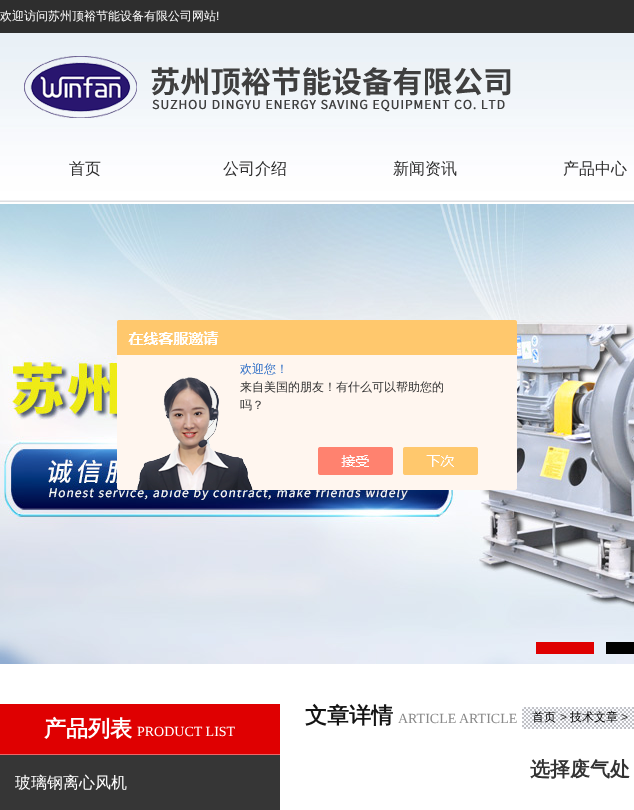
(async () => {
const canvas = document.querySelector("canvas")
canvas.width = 634
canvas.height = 810
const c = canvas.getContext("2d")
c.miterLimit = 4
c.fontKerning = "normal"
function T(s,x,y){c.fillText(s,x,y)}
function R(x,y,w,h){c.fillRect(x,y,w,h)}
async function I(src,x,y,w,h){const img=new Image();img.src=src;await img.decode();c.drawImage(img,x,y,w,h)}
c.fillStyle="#fff"
R(0,0,634,810)
c.fillStyle="#2e2e2e"
R(0,0,634,33)
c.font="500 12px WenQuanYi Zen Hei"
c.fillStyle="#fff"
T("欢迎访问苏州顶裕节能设备有限公司网站",0,20)
c.font="12px Liberation Sans"
T("!",216,20)
await I("1.png",0,33,634,169)
await I("2.png",24,56,487,62)
c.font="500 16px WenQuanYi Zen Hei"
c.fillStyle="#2c2c2c"
T("首页",69,174)
T("公司介绍",223,174)
T("新闻资讯",393,174)
T("产品中心",563,174)
await I("3.png",0,204,634,460)
c.fillStyle="#df0001"
R(536,642,58,12)
c.fillStyle="#000"
R(606,642,28,12)
await I("4.png",117,320,400,170)
c.font="500 12px WenQuanYi Zen Hei"
c.fillStyle="#2e6ec6"
T("欢迎您！",240,373)
c.fillStyle="#333"
T("来自美国的朋友！有什么可以帮助您的",240,391)
T("吗？",240,409)
c.fillStyle="#df0001"
R(0,704,280,50)
c.fillStyle="#ec6667"
R(0,754,280,1)
c.font="bold 22px WenQuanYi Zen Hei"
c.fillStyle="#fff"
T("产品列表",44,736)
c.font="14px Liberation Serif"
T("PRODUCT LIST",137,736)
c.fillStyle="#363636"
R(0,755,280,55)
c.font="500 16px WenQuanYi Zen Hei"
c.fillStyle="#fff"
T("玻璃钢离心风机",15,788)
await I("5.png",522,707,112,22)
c.font="bold 22px WenQuanYi Zen Hei"
c.fillStyle="#141414"
T("文章详情",305,723)
c.font="14px Liberation Serif"
c.fillStyle="#898989"
T("ARTICLE ARTICLE",398,723)
c.font="500 12px WenQuanYi Zen Hei"
c.fillStyle="#000"
T("首页",532,721)
c.font="12px Liberation Sans"
c.fillStyle="#333"
T(">",560,721)
c.font="500 12px WenQuanYi Zen Hei"
c.fillStyle="#000"
T("技术文章",570,721)
c.font="12px Liberation Sans"
c.fillStyle="#333"
T(">",621,721)
c.font="bold 20px WenQuanYi Zen Hei"
T("选择废气处",530,776)
})()
